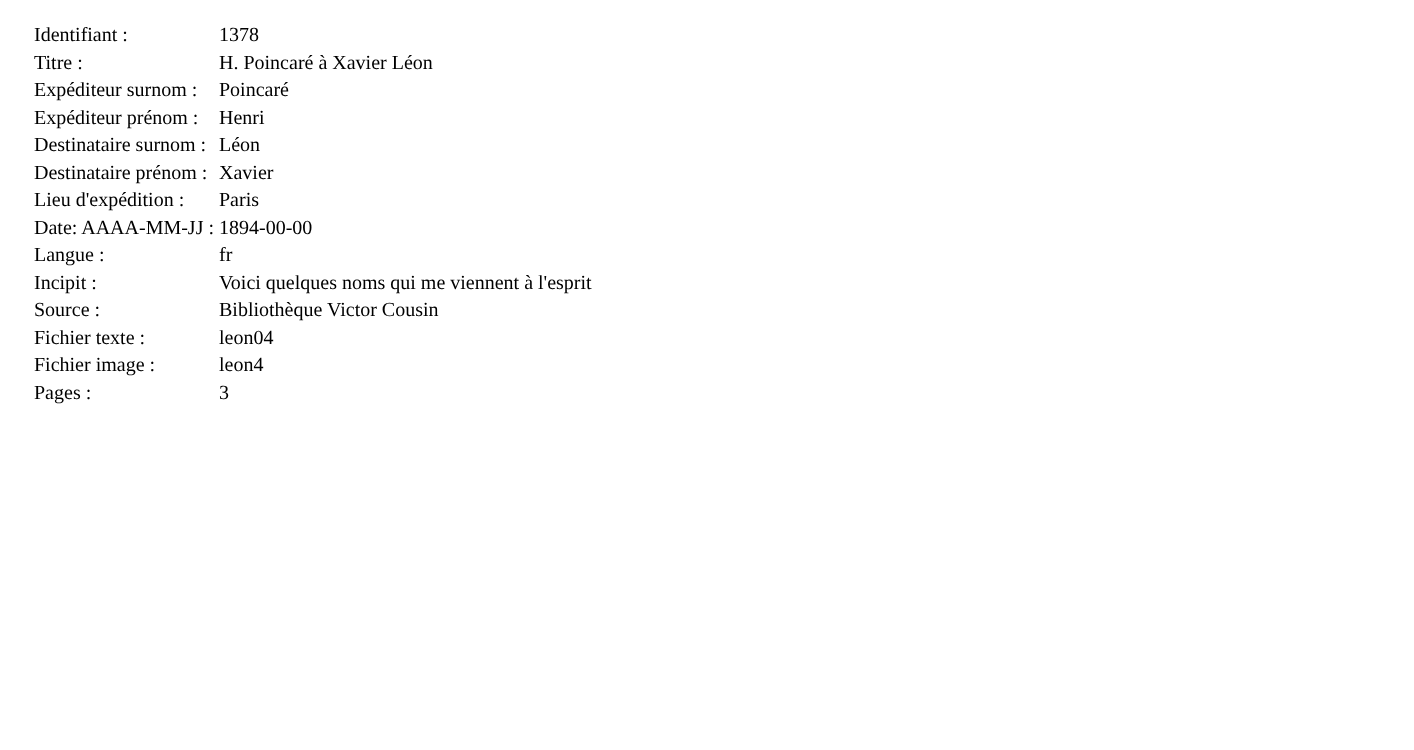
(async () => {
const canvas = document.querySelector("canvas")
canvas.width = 1414
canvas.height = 750
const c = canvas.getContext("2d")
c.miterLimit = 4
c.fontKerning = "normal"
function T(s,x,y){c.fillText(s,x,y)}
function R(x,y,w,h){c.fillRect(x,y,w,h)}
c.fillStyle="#fff"
R(0,0,1414,750)
c.font="20px Liberation Serif"
c.fillStyle="#000"
T("Identifiant :",34,41)
T("1378",219,41)
T("Titre :",34,69)
T("H. Poincaré à Xavier Léon",219,69)
T("Expéditeur surnom :",34,96)
T("Poincaré",219,96)
T("Expéditeur prénom :",34,124)
T("Henri",219,124)
T("Destinataire surnom :",34,151)
T("Léon",219,151)
T("Destinataire prénom :",34,179)
T("Xavier",219,179)
T("Lieu d'expédition :",34,206)
T("Paris",219,206)
T("Date: AAAA-MM-JJ : 1894-00-00",34,234)
T("Langue :",34,261)
T("fr",219,261)
T("Incipit :",34,289)
T("Voici quelques noms qui me viennent à l'esprit",219,289)
T("Source :",34,316)
T("Bibliothèque Victor Cousin",219,316)
T("Fichier texte :",34,344)
T("leon04",219,344)
T("Fichier image :",34,371)
T("leon4",219,371)
T("Pages :",34,399)
T("3",219,399)
})()
